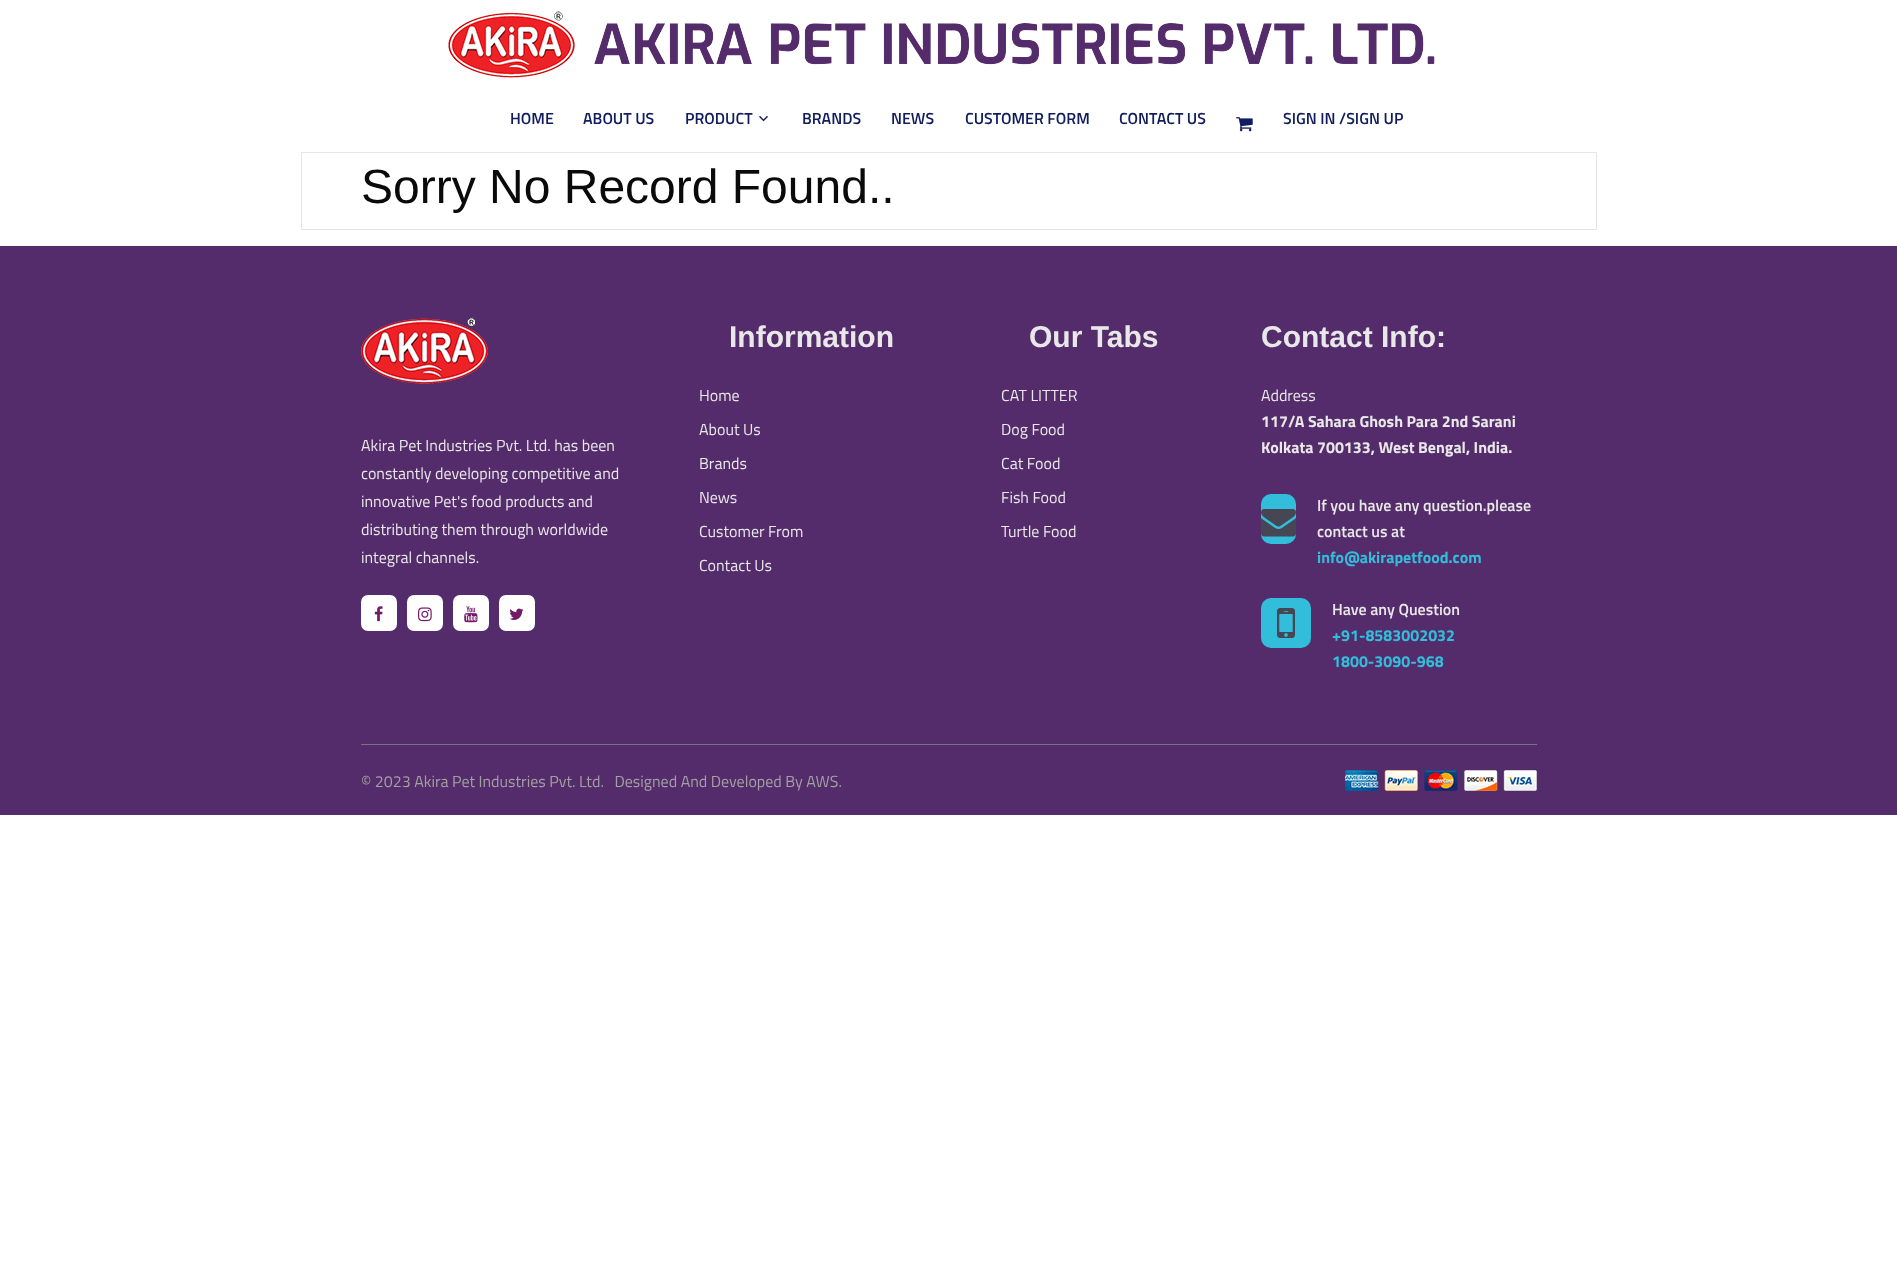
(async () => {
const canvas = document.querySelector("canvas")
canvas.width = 1897
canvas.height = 1261
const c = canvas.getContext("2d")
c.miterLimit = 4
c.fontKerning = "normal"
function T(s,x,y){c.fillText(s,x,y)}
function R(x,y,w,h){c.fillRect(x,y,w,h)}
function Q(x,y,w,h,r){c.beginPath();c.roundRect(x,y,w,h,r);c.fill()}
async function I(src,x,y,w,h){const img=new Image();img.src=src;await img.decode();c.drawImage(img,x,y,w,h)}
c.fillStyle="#fff"
R(0,0,1897,1261)
await I("1.png",448,11,127,67)
await I("2.png",594,23,841,42)
c.font="600 16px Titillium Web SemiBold"
c.fillStyle="#111d5e"
T("HOME",510,124)
T("ABOUT US",583,124)
T("PRODUCT",685,124)
await I("3.png",759,116,9,6)
T("BRANDS",802,124)
T("NEWS",891,124)
T("CUSTOMER FORM",965,124)
T("CONTACT US",1119,124)
await I("4.png",1236,117,17,15)
T("SIGN IN /SIGN UP",1283,124)
c.strokeStyle="#e6e6e6"
c.strokeRect(301.5,152.5,1295,77)
c.font="48px Liberation Sans"
c.fillStyle="#0a0a0a"
T("Sorry No Record Found..",361,203)
c.fillStyle="#552c6b"
R(0,246,1897,569)
await I("5.png",361,317,127,67)
c.font="16px Titillium Web"
c.fillStyle="#e8e8e8"
T("Akira Pet Industries Pvt. Ltd. has been",361,451)
T("constantly developing competitive and",361,479)
T("innovative Pet's food products and",361,507)
T("distributing them through worldwide",361,535)
T("integral channels.",361,563)
c.fillStyle="#fff"
Q(361,595,36,36,7)
await I("6.png",374,606,9,16)
Q(407,595,36,36,7)
await I("7.png",418,607,14,15)
Q(453,595,36,36,7)
await I("8.png",464,606,14,17)
Q(499,595,36,36,7)
await I("9.png",509,608,15,12)
c.font="bold 30px Liberation Sans"
c.fillStyle="#e8e8e8"
T("Information",729,347)
c.font="16px Titillium Web"
T("Home",699,401)
T("About Us",699,435)
T("Brands",699,469)
T("News",699,503)
T("Customer From",699,537)
T("Contact Us",699,571)
c.font="bold 30px Liberation Sans"
T("Our Tabs",1029,347)
c.font="16px Titillium Web"
T("CAT LITTER",1001,401)
T("Dog Food",1001,435)
T("Cat Food",1001,469)
T("Fish Food",1001,503)
T("Turtle Food",1001,537)
c.font="bold 30px Liberation Sans"
T("Contact Info:",1261,347)
c.font="16px Titillium Web"
T("Address",1261,401)
c.font="bold 16px Titillium Web"
T("117/A Sahara Ghosh Para 2nd Sarani",1261,427)
T("Kolkata 700133, West Bengal, India.",1261,453)
c.fillStyle="#32bedb"
Q(1261,494,35,50,10)
await I("10.png",1261,509,35,28)
c.font="600 16px Titillium Web SemiBold"
c.fillStyle="#e8e8e8"
T("If you have any question.please",1317,511)
T("contact us at",1317,537)
c.font="bold 16px Titillium Web"
c.fillStyle="#32bedb"
T("info@akirapetfood.com",1317,563)
Q(1261,598,50,50,10)
await I("11.png",1277,608,18,30)
c.font="600 16px Titillium Web SemiBold"
c.fillStyle="#e8e8e8"
T("Have any Question",1332,615)
c.font="bold 16px Titillium Web"
c.fillStyle="#32bedb"
T("+91-8583002032",1332,641)
T("1800-3090-968",1332,667)
c.fillStyle="#75757b"
R(361,744,1176,1)
c.font="16px Titillium Web"
c.fillStyle="#a1a1a1"
T("© 2023 Akira Pet Industries Pvt. Ltd.   Designed And Developed By AWS.",361,787)
await I("12.png",1345,770,192,21)
})()
